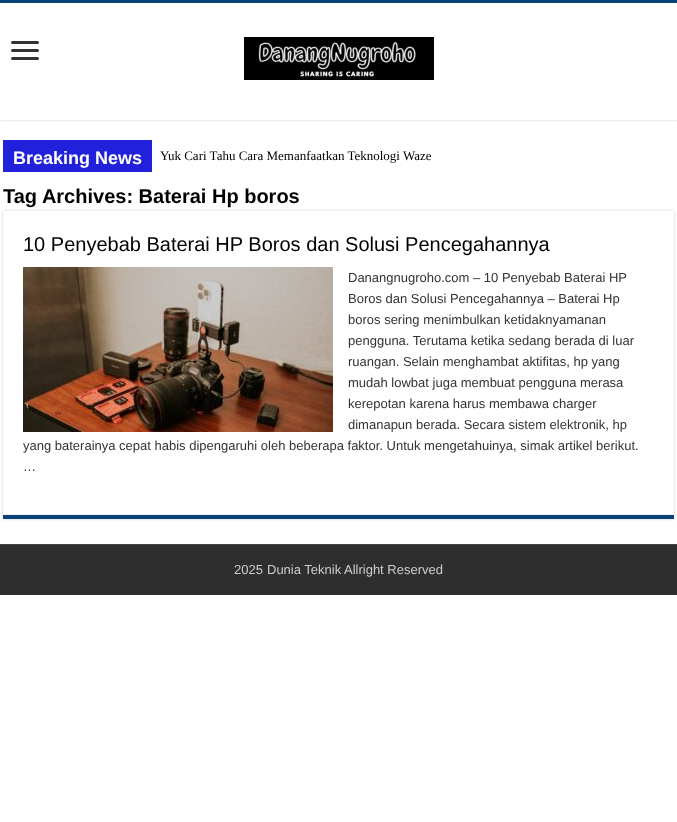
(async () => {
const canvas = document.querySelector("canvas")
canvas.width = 677
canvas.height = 822
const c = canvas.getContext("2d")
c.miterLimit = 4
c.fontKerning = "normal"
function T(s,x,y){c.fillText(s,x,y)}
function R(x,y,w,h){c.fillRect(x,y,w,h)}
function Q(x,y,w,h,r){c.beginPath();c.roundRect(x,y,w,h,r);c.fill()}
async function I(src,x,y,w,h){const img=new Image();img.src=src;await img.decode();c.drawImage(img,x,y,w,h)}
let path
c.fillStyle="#fff"
R(0,0,677,822)
c.save()
c.beginPath()
c.rect(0,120,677,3)
c.clip()
c.fillStyle="#cacaca"
c.filter="blur(1.5px)"
c.beginPath()
c.rect(0,0,677,120)
c.fill()
c.filter="none"
c.restore()
c.fillStyle="#084478"
R(0,0,677,3)
c.fillStyle="#333"
Q(11,41,28,3,1.5)
Q(11,49,28,3,1.5)
Q(11,57,28,3,1.5)
await I("1.png",244,37,190,43)
c.fillStyle="#2121db"
R(3,140,149,32)
c.font="bold 18px Liberation Sans"
c.fillStyle="#fff"
T("Breaking News",13,164)
c.font="13px Liberation Serif"
c.fillStyle="#000"
T("Yuk Cari Tahu Cara Memanfaatkan Teknologi Waze",160,160)
c.save()
path = new Path2D("M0 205h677v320h-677zm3 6h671v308h-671z")
c.clip(path,"evenodd")
c.fillStyle="#cacaca"
c.filter="blur(1.5px)"
c.beginPath()
c.rect(3,211,671,308)
c.fill()
c.filter="none"
c.restore()
c.font="bold 20px Liberation Sans"
T("Tag Archives: Baterai Hp boros",3,203)
c.fillStyle="#084478"
R(3,515,671,4)
c.fillStyle="#f2f2f2"
R(3,514,671,1)
c.font="20px Liberation Sans"
c.fillStyle="#000"
T("10 Penyebab Baterai HP Boros dan Solusi Pencegahannya",23,251)
await I("2.png",23,267,310,165)
c.font="13px Liberation Sans"
c.fillStyle="#333"
T("Danangnugroho.com – 10 Penyebab Baterai HP",348,282)
T("Boros dan Solusi Pencegahannya – Baterai Hp",348,303)
T("boros sering menimbulkan ketidaknyamanan",348,324)
T("pengguna. Terutama ketika sedang berada di luar",348,345)
T("ruangan. Selain menghambat aktifitas, hp yang",348,366)
T("mudah lowbat juga membuat pengguna merasa",348,387)
T("kerepotan karena harus membawa charger",348,408)
T("dimanapun berada. Secara sistem elektronik, hp",348,429)
T("yang baterainya cepat habis dipengaruhi oleh beberapa faktor. Untuk mengetahuinya, simak artikel berikut.",23,450)
T("…",23,471)
c.fillStyle="#2e2e2e"
R(0,545,677,50)
c.fillStyle="#444"
R(0,544,677,1)
c.fillStyle="#ccc"
T("2025",234,574)
T("Dunia Teknik",267,574)
T("Allright Reserved",344,574)
})()
